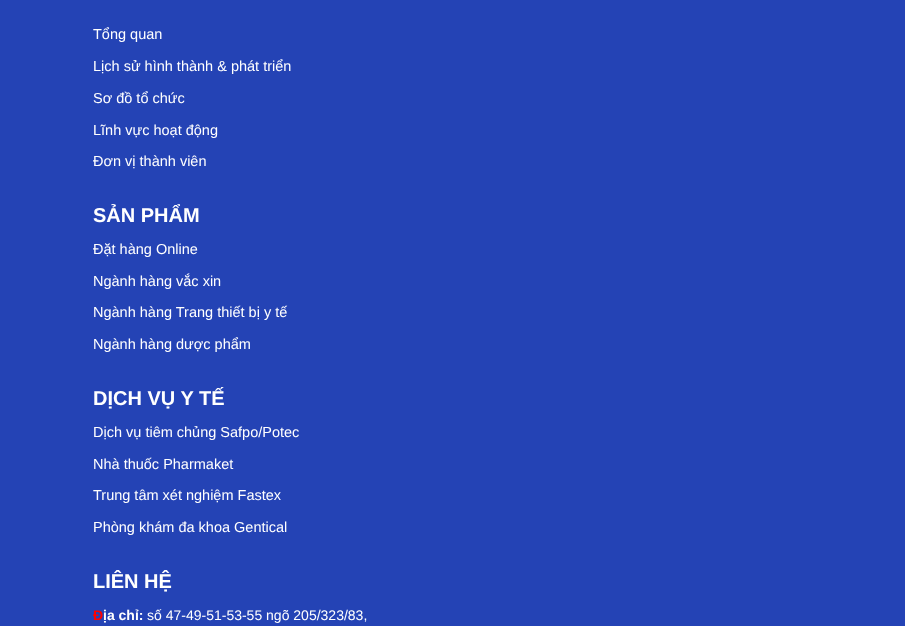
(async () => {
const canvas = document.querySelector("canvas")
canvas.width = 905
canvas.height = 626
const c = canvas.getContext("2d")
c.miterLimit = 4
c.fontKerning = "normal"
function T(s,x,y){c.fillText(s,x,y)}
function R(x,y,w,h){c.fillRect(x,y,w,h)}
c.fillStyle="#2443b5"
R(0,0,905,626)
c.font="14.5px Liberation Sans"
c.fillStyle="#fff"
T("Tổng quan",93,39)
T("Lịch sử hình thành & phát triển",93,71)
T("Sơ đồ tổ chức",93,103)
T("Lĩnh vực hoạt động",93,135)
T("Đơn vị thành viên",93,166)
c.font="bold 20px Liberation Sans"
T("SẢN PHẨM",93,222)
c.font="14.5px Liberation Sans"
T("Đặt hàng Online",93,254)
T("Ngành hàng vắc xin",93,286)
T("Ngành hàng Trang thiết bị y tế",93,317)
T("Ngành hàng dược phẩm",93,349)
c.font="bold 20px Liberation Sans"
T("DỊCH VỤ Y TẾ",93,405)
c.font="14.5px Liberation Sans"
T("Dịch vụ tiêm chủng Safpo/Potec",93,437)
T("Nhà thuốc Pharmaket",93,469)
T("Trung tâm xét nghiệm Fastex",93,500)
T("Phòng khám đa khoa Gentical",93,532)
c.font="bold 20px Liberation Sans"
T("LIÊN HỆ",93,588)
c.font="bold 14px Liberation Sans"
c.fillStyle="#f00"
T("Đ",93,620)
c.fillStyle="#fff"
T("ịa chỉ:",103,620)
c.font="14px Liberation Sans"
T("số 47-49-51-53-55 ngõ 205/323/83,",147,620)
})()
